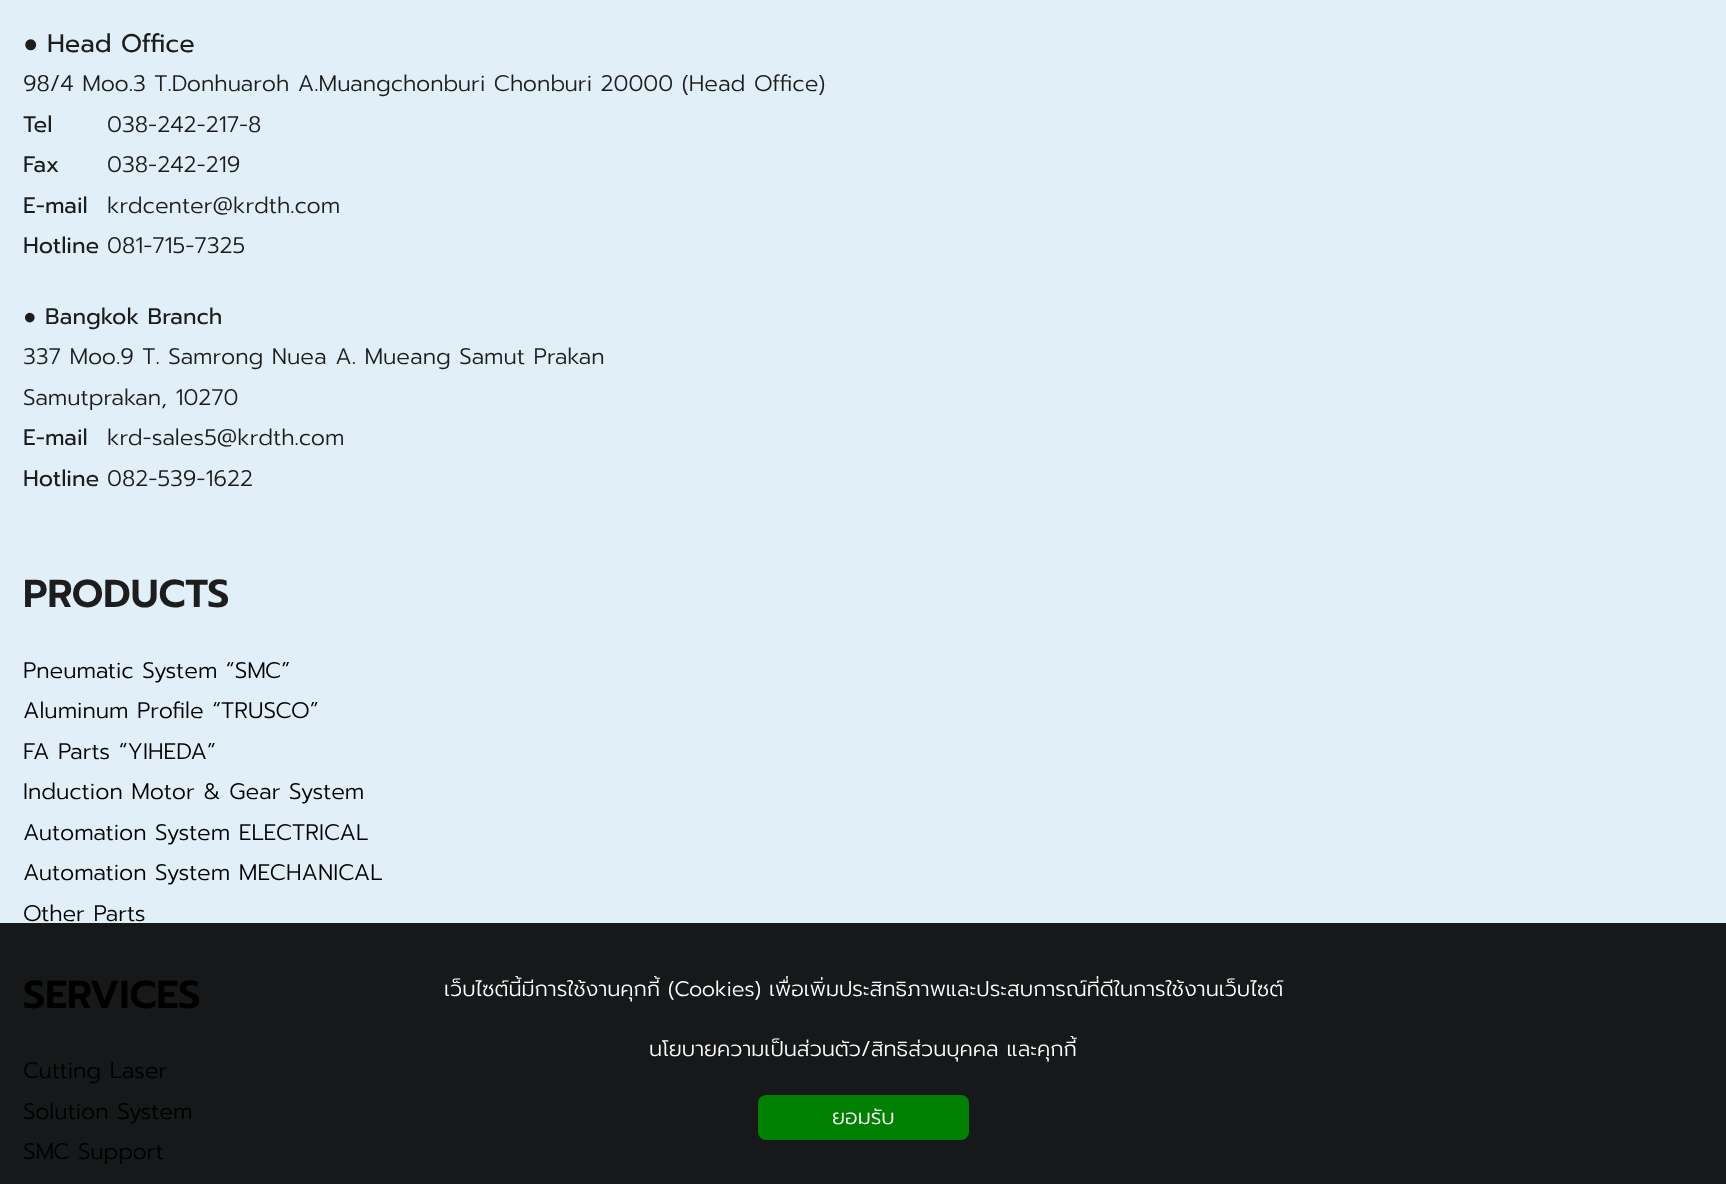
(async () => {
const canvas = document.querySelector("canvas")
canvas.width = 1726
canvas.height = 1184
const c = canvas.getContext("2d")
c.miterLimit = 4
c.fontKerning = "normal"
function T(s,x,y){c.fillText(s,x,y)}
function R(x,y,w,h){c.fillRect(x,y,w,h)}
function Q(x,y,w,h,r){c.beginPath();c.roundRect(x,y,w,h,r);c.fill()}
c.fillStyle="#e0eff8"
R(0,0,1726,1184)
c.fillStyle="#161819"
R(0,923,1726,261)
c.font="25.5px Liberation Sans"
c.fillStyle="#1e1d1d"
T("●",23,52)
c.font="25.5px Prompt"
T("Head Office",47,52)
c.font="300 22.5px Prompt"
T("98/4 Moo.3 T.Donhuaroh A.Muangchonburi Chonburi 20000 (Head Office)",23,91)
c.font="22.5px Prompt"
T("Tel",23,132)
c.font="300 22.5px Prompt"
T("038-242-217-8",107,132)
c.font="22.5px Prompt"
T("Fax",23,172)
c.font="300 22.5px Prompt"
T("038-242-219",107,172)
c.font="22.5px Prompt"
T("E-mail",23,213)
c.font="300 22.5px Prompt"
T("krdcenter@krdth.com",107,213)
c.font="22.5px Prompt"
T("Hotline",23,253)
c.font="300 22.5px Prompt"
T("081-715-7325",107,253)
c.font="22.5px Liberation Sans"
T("●",23,324)
c.font="22.5px Prompt"
T("Bangkok Branch",45,324)
c.font="300 22.5px Prompt"
T("337 Moo.9 T. Samrong Nuea A. Mueang Samut Prakan",23,364)
T("Samutprakan, 10270",23,405)
c.font="22.5px Prompt"
T("E-mail",23,445)
c.font="300 22.5px Prompt"
T("krd-sales5@krdth.com",107,445)
c.font="22.5px Prompt"
T("Hotline",23,486)
c.font="300 22.5px Prompt"
T("082-539-1622",107,486)
c.font="600 39px Prompt"
T("PRODUCTS",23,607)
c.font="300 22.5px Prompt"
c.fillStyle="#000"
T("Pneumatic System “SMC”",23,678)
T("Aluminum Profile “TRUSCO”",23,718)
T("FA Parts “YIHEDA”",23,759)
T("Induction Motor & Gear System",23,799)
T("Automation System ELECTRICAL",23,840)
T("Automation System MECHANICAL",23,880)
T("Other Parts",23,921)
c.font="600 39px Prompt"
T("SERVICES",23,1008)
c.font="300 22.5px Prompt"
T("Cutting Laser",23,1078)
T("Solution System",23,1119)
T("SMC Support",23,1159)
c.font="300 21px Prompt"
c.fillStyle="#fff"
T("เว็บไซต์นี้มีการใช้งานคุกกี้ (Cookies) เพื่อเพิ่มประสิทธิภาพและประสบการณ์ที่ดีในการใช้งานเว็บไซต์",444,996)
T("นโยบายความเป็นส่วนตัว/สิทธิส่วนบุคคล และคุกกี้",649,1056)
c.fillStyle="#008000"
Q(758,1095,211,45,8)
c.fillStyle="#fff"
T("ยอมรับ",832,1124)
})()
